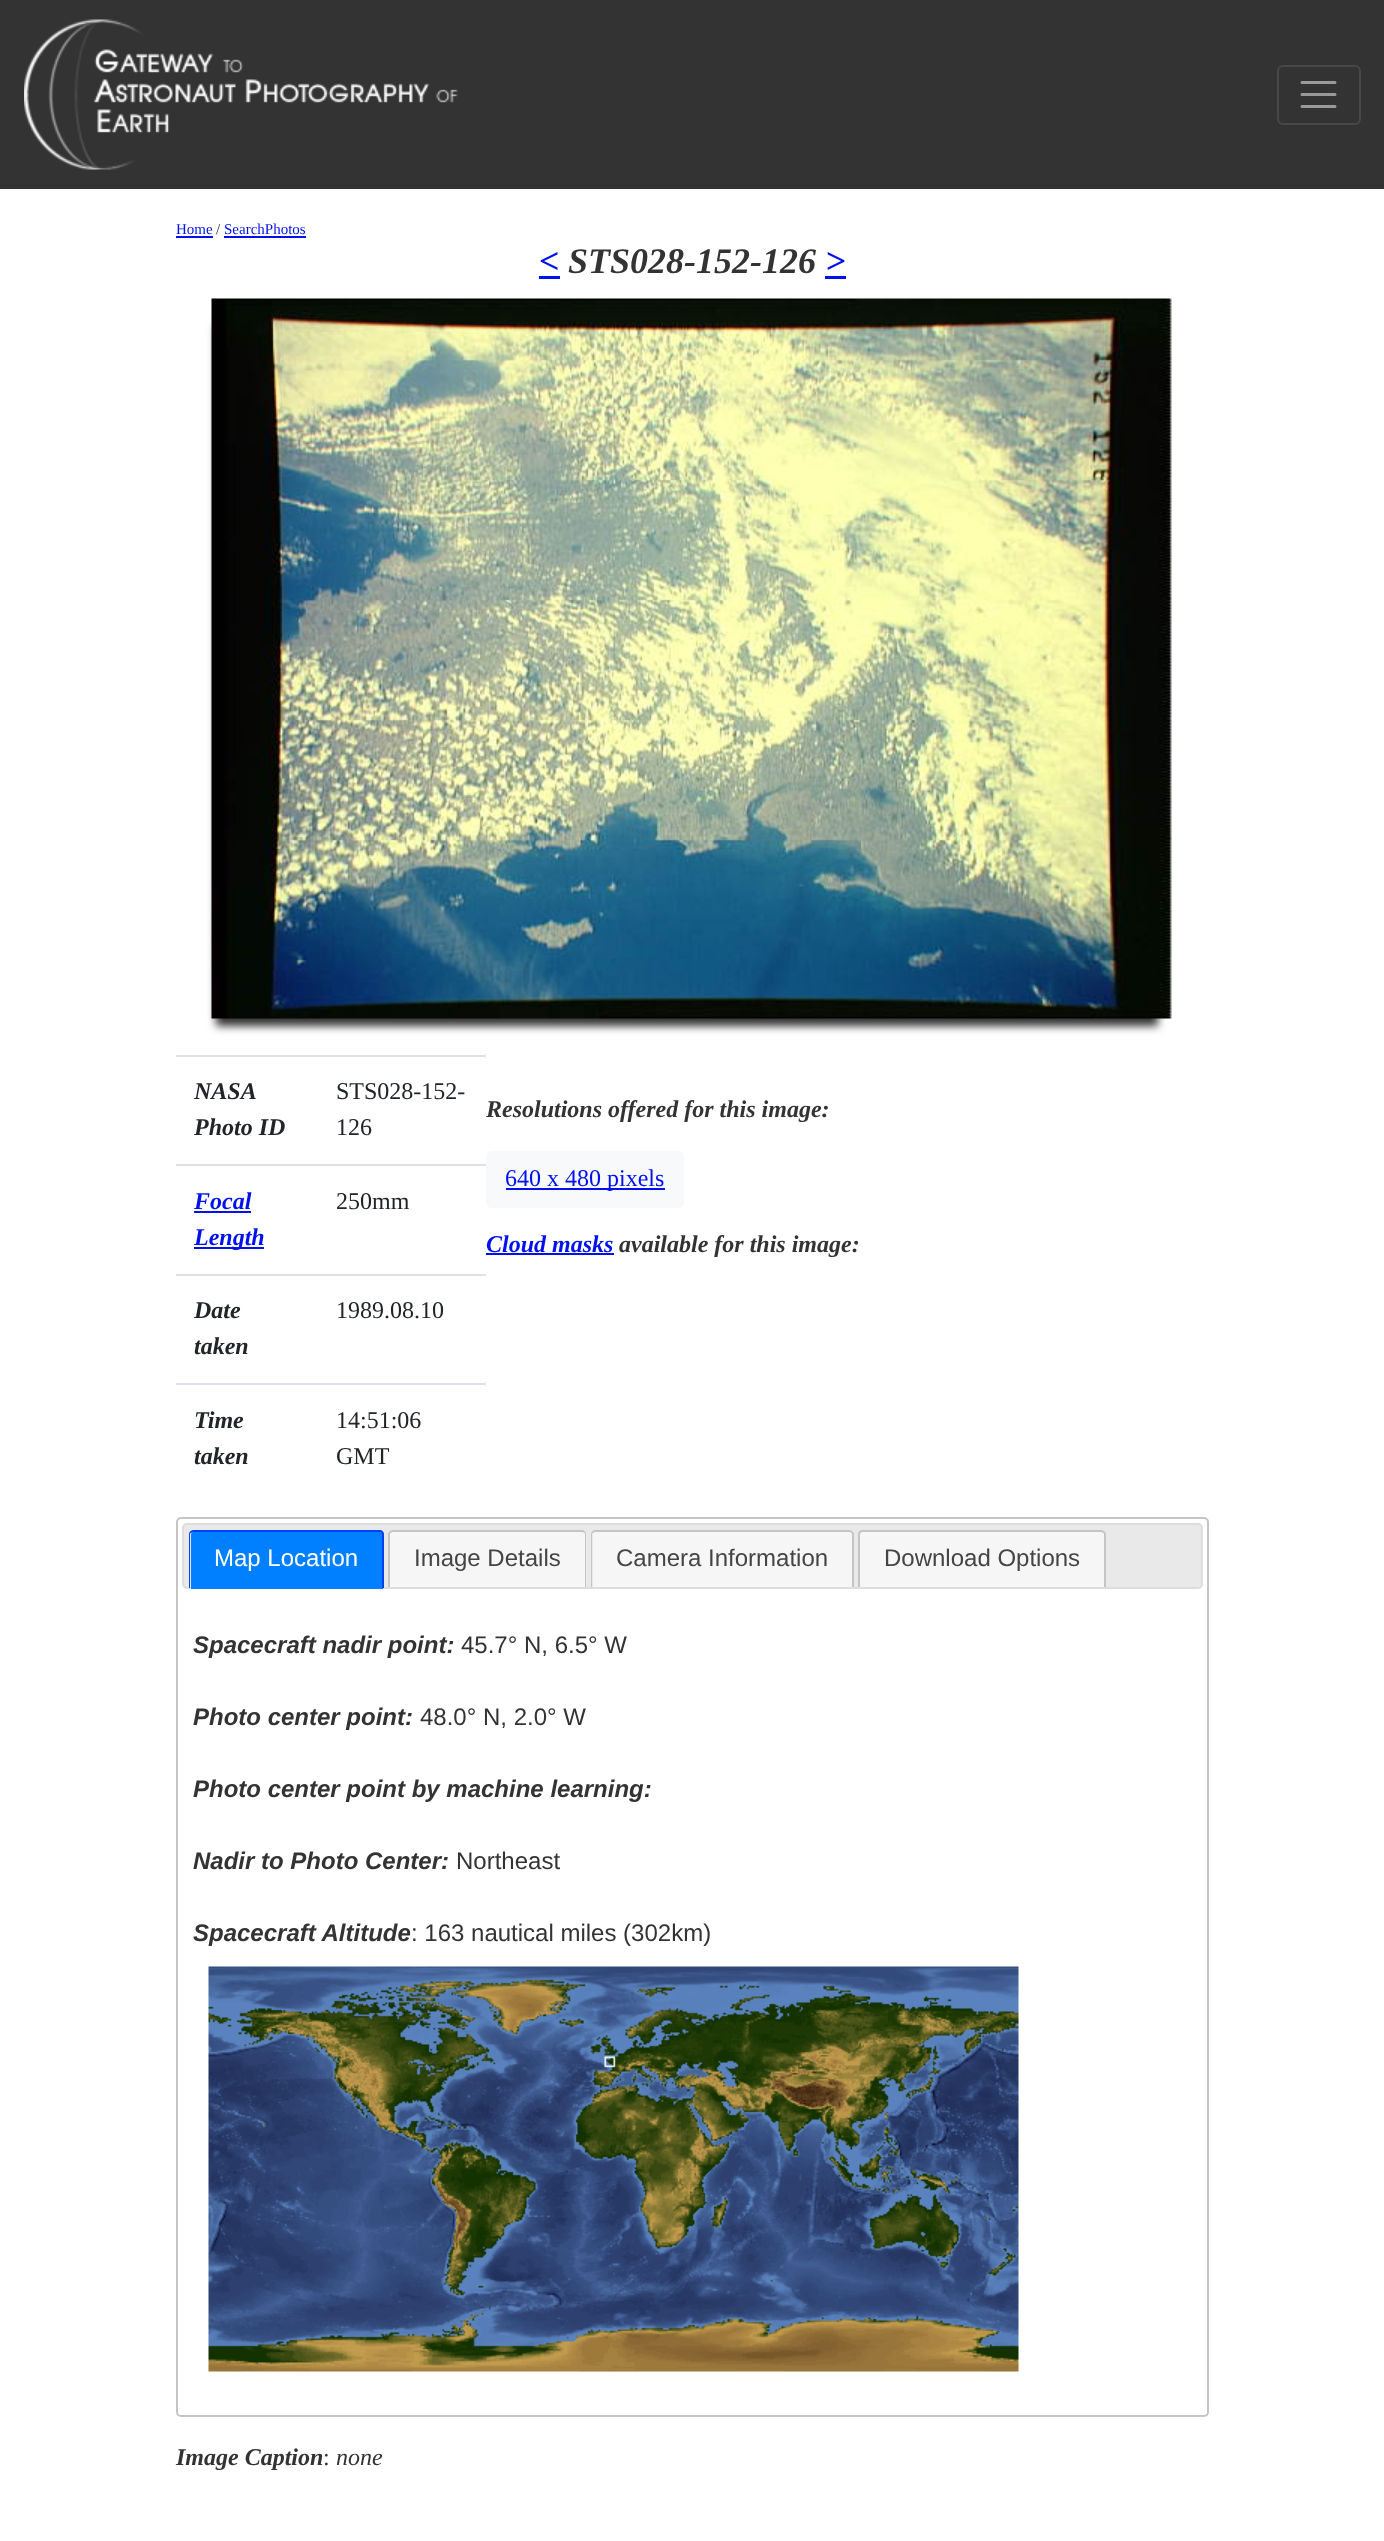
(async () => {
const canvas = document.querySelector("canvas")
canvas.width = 1384
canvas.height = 2541
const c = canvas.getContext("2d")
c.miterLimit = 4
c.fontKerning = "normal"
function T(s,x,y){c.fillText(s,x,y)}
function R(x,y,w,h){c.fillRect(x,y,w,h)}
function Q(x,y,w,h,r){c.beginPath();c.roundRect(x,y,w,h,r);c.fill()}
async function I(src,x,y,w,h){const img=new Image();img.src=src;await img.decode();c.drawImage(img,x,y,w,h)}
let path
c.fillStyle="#fff"
R(0,0,1384,2541)
c.fillStyle="#333"
R(0,0,1384,189)
await I("1.png",24,19,434,151)
c.beginPath()
c.roundRect(1278,66,82,58,5)
c.strokeStyle="#474747"
c.lineWidth=2
c.stroke()
path = new Path2D("M1302 82.5h33m-33 12h33m-33 12h33")
c.strokeStyle="#999"
c.lineWidth=3
c.lineCap="round"
c.stroke(path)
c.font="15px Liberation Serif"
c.fillStyle="#01e"
T("Home",176,234)
R(176,236,37,2)
c.fillStyle="#333"
T("/",216,234)
c.fillStyle="#01e"
T("SearchPhotos",224,234)
R(224,236,82,2)
c.font="italic bold 36px Liberation Serif"
T("<",539,273)
R(539,276,21,3)
c.fillStyle="#333"
T("STS028-152-126",568,273)
c.fillStyle="#01e"
T(">",825,273)
R(825,276,21,3)
c.fillStyle="#333"
c.filter="blur(4.5px)"
c.beginPath()
c.rect(216,324,942,702)
c.fill()
c.filter="none"
await I("2.png",211,298,961,721)
c.font="italic bold 24px Liberation Serif"
c.fillStyle="#212529"
T("NASA",194,1099)
T("Photo ID",194,1135)
c.fillStyle="#dee2e6"
R(176,1055,310,2)
c.font="24px Liberation Serif"
c.fillStyle="#212529"
T("STS028-152-",336,1099)
T("126",336,1135)
c.font="italic bold 24px Liberation Serif"
c.fillStyle="#01e"
T("Focal",194,1209)
R(194,1211,57,2)
R(194,1247,70,2)
T("Length",194,1245)
c.fillStyle="#dee2e6"
R(176,1164,310,2)
c.font="24px Liberation Serif"
c.fillStyle="#212529"
T("250mm",336,1209)
c.font="italic bold 24px Liberation Serif"
T("Date",194,1318)
T("taken",194,1354)
c.fillStyle="#dee2e6"
R(176,1274,310,2)
c.font="24px Liberation Serif"
c.fillStyle="#212529"
T("1989.08.10",336,1318)
c.font="italic bold 24px Liberation Serif"
T("Time",194,1428)
T("taken",194,1464)
c.fillStyle="#dee2e6"
R(176,1383,310,2)
c.font="24px Liberation Serif"
c.fillStyle="#212529"
T("14:51:06",336,1428)
T("GMT",336,1464)
c.font="italic bold 24px Liberation Serif"
c.fillStyle="#333"
T("Resolutions offered for this image:",486,1117)
c.fillStyle="#f8f9fa"
Q(486,1151,198,57,6)
c.fillStyle="#01e"
R(506,1188,159,2)
c.font="24px Liberation Serif"
T("640 x 480 pixels",505,1186)
c.font="italic bold 24px Liberation Serif"
T("Cloud masks",486,1252)
R(486,1253,128,2)
c.fillStyle="#333"
T("available for this image:",619,1252)
c.beginPath()
c.roundRect(177,1518,1031,898,4)
c.strokeStyle="#c5c5c5"
c.lineWidth=2
c.stroke()
c.fillStyle="#e9e9e9"
c.beginPath()
c.roundRect(183,1524,1019,64,4)
c.fill()
c.strokeStyle="#ddd"
c.stroke()
c.fillStyle="#007fff"
c.beginPath()
c.roundRect(191,1532,192,57,[3,3,0,0])
c.fill()
c.fillStyle="#003eff"
path = new Path2D("M194 1530h186c2 0 4 2 4 4v54h-195v-54c0-2 2-4 5-4zm0 2h186c1 0 2 1 2 2v54h-192v-54c0-1 2-2 4-2z")
c.fill(path,"evenodd")
c.font="24px Liberation Sans"
c.fillStyle="#fff"
T("Map Location",214,1566)
c.fillStyle="#f6f6f6"
c.beginPath()
c.roundRect(390,1532,195,55,[3,3,0,0])
c.fill()
c.fillStyle="#c5c5c5"
path = new Path2D("M393 1530h189c2 0 4 2 4 4v53h-198v-53c0-2 3-4 5-4zm0 2h189c2 0 3 1 3 2v53h-195v-53c0-1 1-2 3-2z")
c.fill(path,"evenodd")
c.fillStyle="#454545"
T("Image Details",414,1566)
c.fillStyle="#f6f6f6"
c.beginPath()
c.roundRect(593,1532,259,55,[3,3,0,0])
c.fill()
c.fillStyle="#c5c5c5"
path = new Path2D("M596 1530h253c2 0 5 2 5 4v53h-263v-53c0-2 2-4 5-4zm0 2h253c2 0 3 1 3 2v53h-260v-53c0-1 2-2 4-2z")
c.fill(path,"evenodd")
c.fillStyle="#454545"
T("Camera Information",616,1566)
c.fillStyle="#f6f6f6"
c.beginPath()
c.roundRect(860,1532,244,55,[3,3,0,0])
c.fill()
c.fillStyle="#c5c5c5"
path = new Path2D("M862 1530h239c2 0 5 2 5 4v53h-248v-53c0-2 2-4 4-4zm0 2h239c2 0 3 1 3 2v53h-244v-53c0-1 1-2 2-2z")
c.fill(path,"evenodd")
c.fillStyle="#454545"
T("Download Options",884,1566)
c.font="italic bold 24px Liberation Sans"
c.fillStyle="#333"
T("Spacecraft nadir point:",193,1653)
c.font="24px Liberation Sans"
T("45.7° N, 6.5° W",461,1653)
c.font="italic bold 24px Liberation Sans"
T("Photo center point:",193,1725)
c.font="24px Liberation Sans"
T("48.0° N, 2.0° W",420,1725)
c.font="italic bold 24px Liberation Sans"
T("Photo center point by machine learning:",193,1797)
T("Nadir to Photo Center:",193,1869)
c.font="24px Liberation Sans"
T("Northeast",456,1869)
c.font="italic bold 24px Liberation Sans"
T("Spacecraft Altitude",193,1941)
c.font="24px Liberation Sans"
T(": 163 nautical miles (302km)",411,1941)
await I("3.png",208,1966,811,406)
c.font="italic bold 24px Liberation Serif"
T("Image Caption",176,2465)
c.font="24px Liberation Serif"
T(":",323,2465)
c.font="italic 24px Liberation Serif"
T("none",336,2465)
})()
